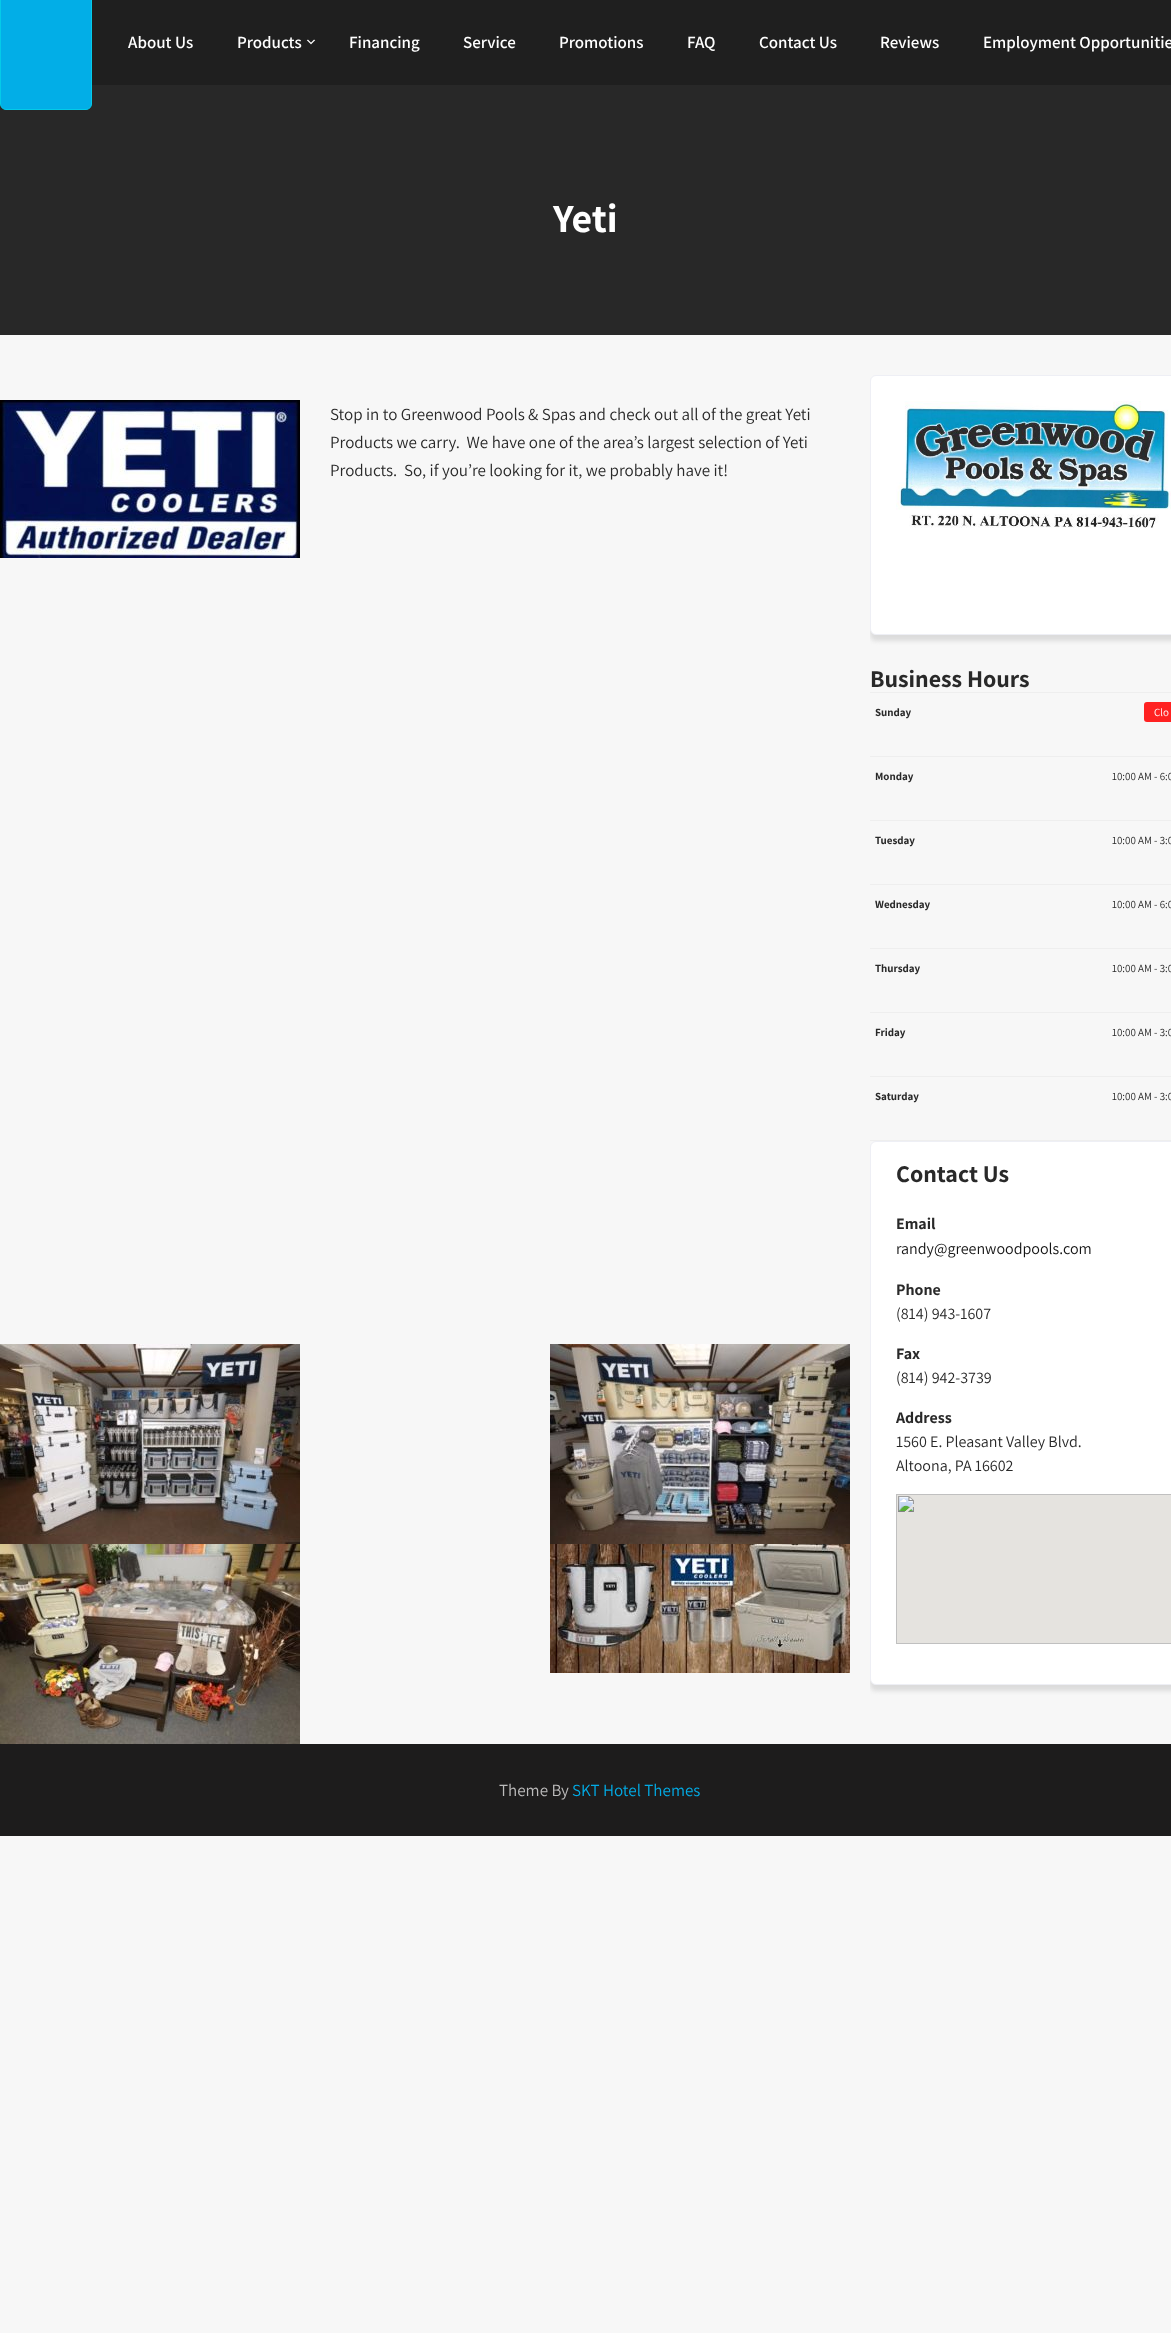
(async () => {
const canvas = document.querySelector("canvas")
canvas.width = 1171
canvas.height = 2333
const c = canvas.getContext("2d")
c.miterLimit = 4
c.fontKerning = "normal"
function T(s,x,y){c.fillText(s,x,y)}
function R(x,y,w,h){c.fillRect(x,y,w,h)}
function Q(x,y,w,h,r){c.beginPath();c.roundRect(x,y,w,h,r);c.fill()}
async function I(src,x,y,w,h){const img=new Image();img.src=src;await img.decode();c.drawImage(img,x,y,w,h)}
let path
c.fillStyle="#f7f7f7"
R(0,0,1171,2333)
c.fillStyle="#1f1f1f"
R(92,0,1079,85)
c.fillStyle="#282828"
R(0,85,1171,250)
c.fillStyle="#02aee7"
path = new Path2D("M.5-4.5h91v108.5c0 3-2.5 5.5-5.5 5.5h-80c-3 0-5.5-2.5-5.5-5.5z")
c.fill(path)
c.strokeStyle="#03cbe9"
c.stroke(path)
c.font="600 17px Assistant"
c.fillStyle="#fff"
T("About Us",128,48)
T("Products",237,48)
await I("1.png",306,39,10,6)
T("Financing",349,48)
T("Service",463,48)
T("Promotions",559,48)
T("FAQ",687,48)
T("Contact Us",759,48)
T("Reviews",880,48)
T("Employment Opportunitie",983,48)
c.font="bold 40px Assistant"
T("Yeti",553,232)
await I("2.png",0,400,300,158)
c.font="17px Assistant"
c.fillStyle="#292929"
T("Stop in to Greenwood Pools & Spas and check out all of the great Yeti",330,420)
T("Products we carry.  We have one of the area’s largest selection of Yeti",330,448)
T("Products.  So, if you’re looking for it, we probably have it!",330,476)
await I("3.png",0,1344,300,200)
await I("4.png",550,1344,300,200)
await I("5.png",0,1544,300,200)
await I("6.png",550,1544,300,129)
c.save()
c.beginPath()
c.rect(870,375,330,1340)
c.clip()
c.fillStyle="#dcdcdc"
c.filter="blur(2px)"
c.beginPath()
c.roundRect(870,381,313,260,6)
c.fill()
c.filter="none"
c.restore()
c.fillStyle="#fff"
c.beginPath()
c.roundRect(870.5,375.5,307,259,5.5)
c.fill()
c.strokeStyle="#eeeff5"
c.stroke()
await I("7.png",896,401,275,127)
c.save()
c.beginPath()
c.rect(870,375,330,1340)
c.clip()
c.fillStyle="#dcdcdc"
c.filter="blur(2px)"
c.beginPath()
c.roundRect(870,1147,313,544,6)
c.fill()
c.filter="none"
c.restore()
c.fillStyle="#eee"
R(870,1140,301,1)
c.font="bold 24px Assistant"
c.fillStyle="#292929"
T("Business Hours",870,687)
c.fillStyle="#eee"
R(870,692,301,1)
c.font="bold 11px Assistant"
c.fillStyle="#292929"
T("Sunday",875,716)
c.fillStyle="#f22"
Q(1144,702,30,20,3)
c.font="11px Assistant"
c.fillStyle="#fff"
T("Clo",1154,716)
c.fillStyle="#eee"
R(870,756,301,1)
c.font="bold 11px Assistant"
c.fillStyle="#292929"
T("Monday",875,780)
c.font="11px Assistant"
T("10:00 AM - 6:0",1112,780)
c.fillStyle="#eee"
R(870,820,301,1)
c.font="bold 11px Assistant"
c.fillStyle="#292929"
T("Tuesday",875,844)
c.font="11px Assistant"
T("10:00 AM - 3:0",1112,844)
c.fillStyle="#eee"
R(870,884,301,1)
c.font="bold 11px Assistant"
c.fillStyle="#292929"
T("Wednesday",875,908)
c.font="11px Assistant"
T("10:00 AM - 6:0",1112,908)
c.fillStyle="#eee"
R(870,948,301,1)
c.font="bold 11px Assistant"
c.fillStyle="#292929"
T("Thursday",875,972)
c.font="11px Assistant"
T("10:00 AM - 3:0",1112,972)
c.fillStyle="#eee"
R(870,1012,301,1)
c.font="bold 11px Assistant"
c.fillStyle="#292929"
T("Friday",875,1036)
c.font="11px Assistant"
T("10:00 AM - 3:0",1112,1036)
c.fillStyle="#eee"
R(870,1076,301,1)
c.font="bold 11px Assistant"
c.fillStyle="#292929"
T("Saturday",875,1100)
c.font="11px Assistant"
T("10:00 AM - 3:0",1112,1100)
c.fillStyle="#fff"
c.beginPath()
c.roundRect(870.5,1141.5,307,543,5.5)
c.fill()
c.stroke()
c.font="bold 24px Assistant"
c.fillStyle="#292929"
T("Contact Us",896,1182)
c.font="bold 16px Assistant"
T("Email",896,1229)
c.font="16px Assistant"
c.fillStyle="#141414"
T("randy@greenwoodpools.com",896,1254)
c.font="bold 16px Assistant"
c.fillStyle="#292929"
T("Phone",896,1295)
c.font="16px Assistant"
T("(814) 943-1607",896,1319)
c.font="bold 16px Assistant"
T("Fax",896,1359)
c.font="16px Assistant"
T("(814) 942-3739",896,1383)
c.font="bold 16px Assistant"
T("Address",896,1423)
c.font="16px Assistant"
T("1560 E. Pleasant Valley Blvd.",896,1447)
T("Altoona, PA 16602",896,1471)
await I("8.png",896,1494,275,150)
c.fillStyle="#1d1c1c"
R(0,1744,1171,92)
c.font="17px Assistant"
c.fillStyle="#bcbbbb"
T("Theme By",499,1796)
c.fillStyle="#02abe5"
T("SKT Hotel Themes",572,1796)
})()
